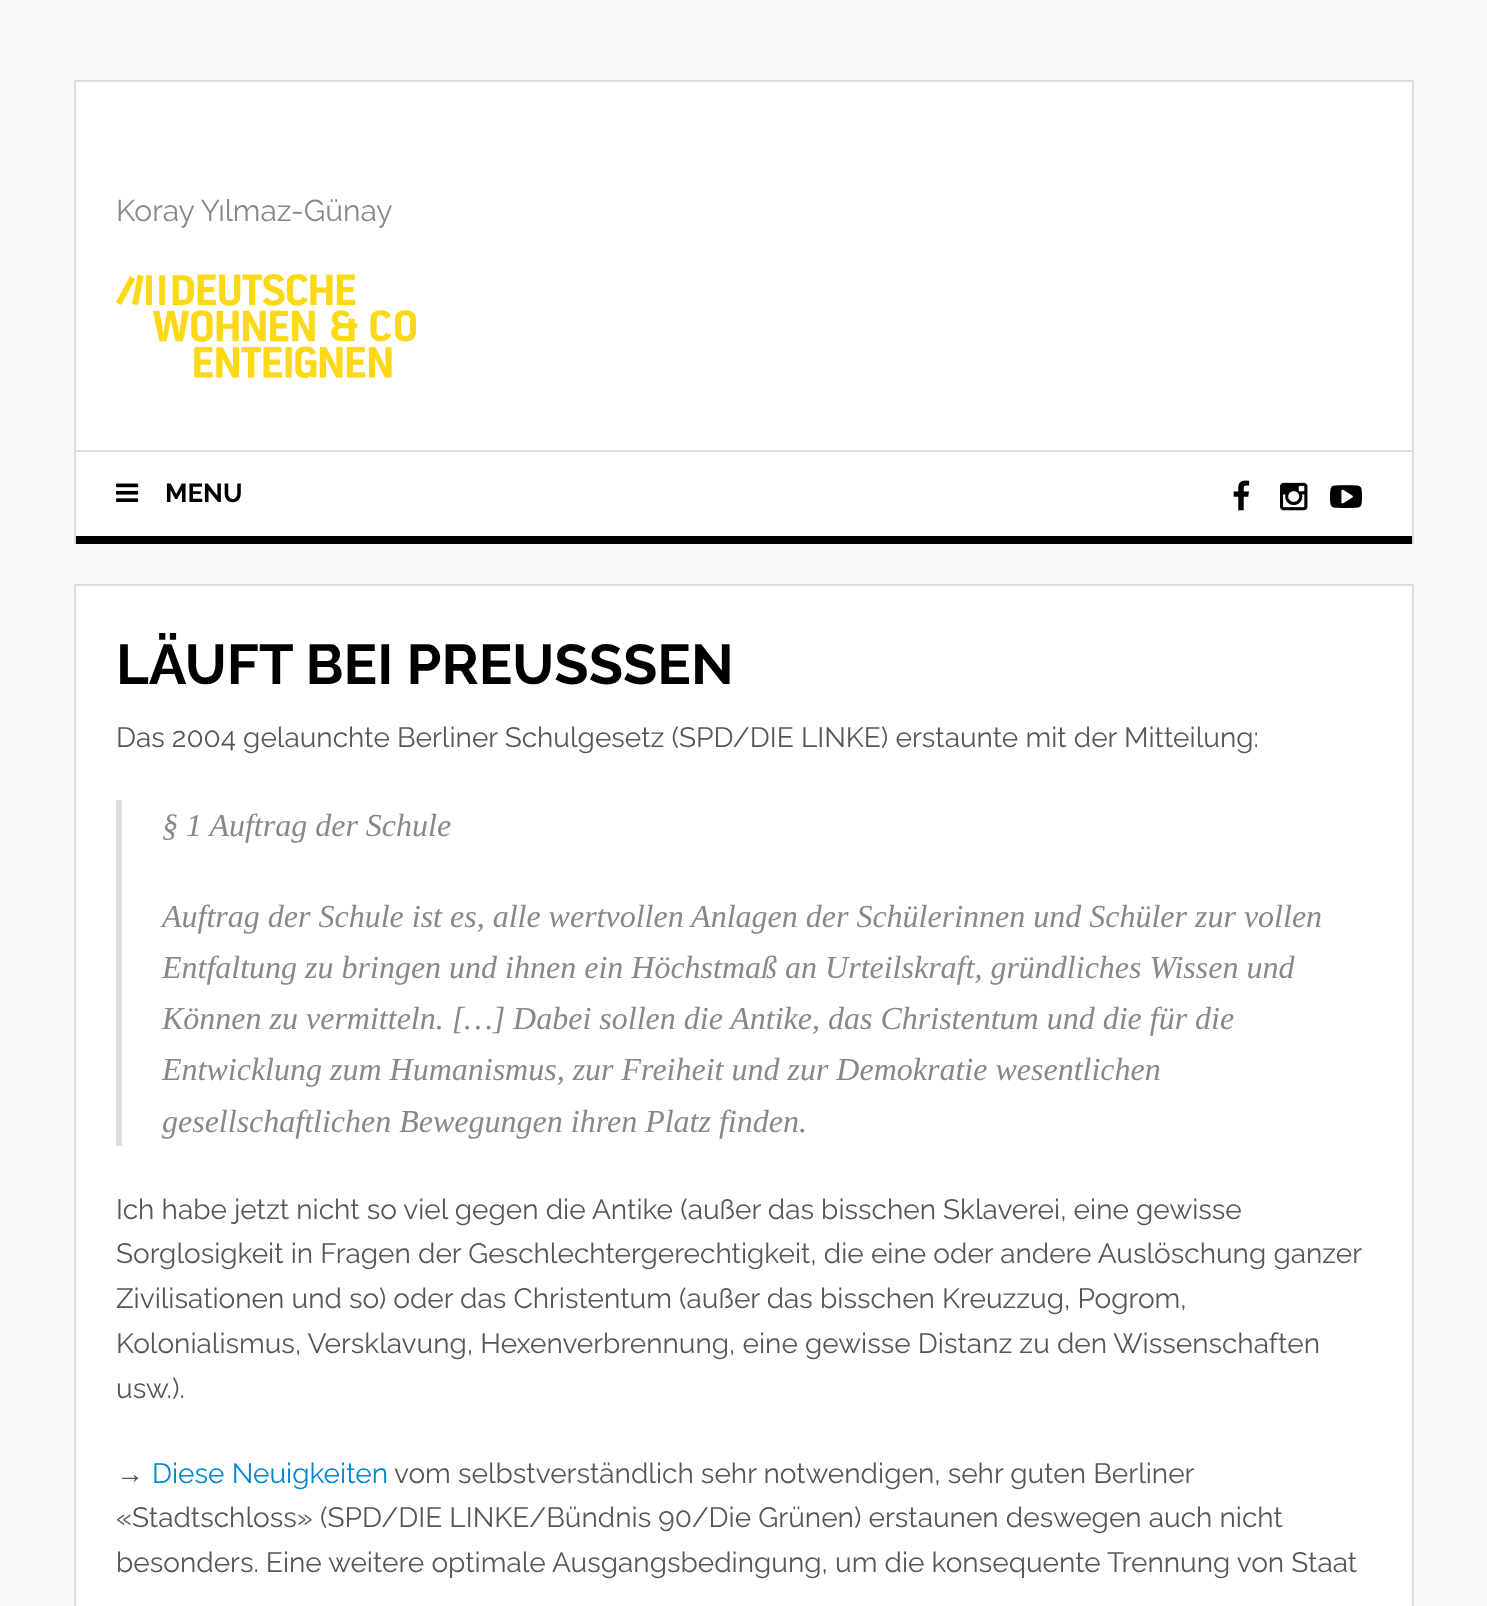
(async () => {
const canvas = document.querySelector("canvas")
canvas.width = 1487
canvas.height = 1606
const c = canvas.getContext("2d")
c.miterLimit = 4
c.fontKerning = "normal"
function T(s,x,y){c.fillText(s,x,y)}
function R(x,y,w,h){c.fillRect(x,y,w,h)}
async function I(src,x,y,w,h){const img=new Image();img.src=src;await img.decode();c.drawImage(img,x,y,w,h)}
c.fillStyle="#f9f9f9"
R(0,0,1487,1606)
c.fillStyle="#fff"
c.beginPath()
c.rect(75,81,1338,370)
c.fill()
c.strokeStyle="#ddd"
c.lineWidth=2
c.stroke()
c.font="30px Raleway"
c.fillStyle="#888"
T("Koray Yılmaz-Günay",116,221)
await I("1.png",116,274,300,104)
c.fillStyle="#fff"
R(76,452,1336,84)
c.fillStyle="#ddd"
R(1412,452,2,92)
R(74,452,2,92)
c.fillStyle="#000"
R(76,536,1336,8)
await I("2.png",116,483,23,19)
c.font="bold 26px Raleway"
T("MENU",165,502)
await I("3.png",1233,480,17,31)
await I("4.png",1280,482,28,29)
await I("5.png",1330,485,32,23)
c.fillStyle="#fff"
c.beginPath()
c.rect(75,585,1338,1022)
c.fill()
c.stroke()
c.font="bold 56px Raleway"
c.fillStyle="#000"
T("LÄUFT BEI PREUSSSEN",116,684)
c.font="28px Raleway"
c.fillStyle="#565656"
T("Das 2004 gelaunchte Berliner Schulgesetz (SPD/DIE LINKE) erstaunte mit der Mitteilung:",116,747)
c.fillStyle="#ddd"
R(116,800,6,346)
c.font="italic 32px Liberation Serif"
c.fillStyle="#888"
T("§ 1 Auftrag der Schule",162,836)
T("Auftrag der Schule ist es, alle wertvollen Anlagen der Schülerinnen und Schüler zur vollen",162,927)
T("Entfaltung zu bringen und ihnen ein Höchstmaß an Urteilskraft, gründliches Wissen und",162,978)
T("Können zu vermitteln. […] Dabei sollen die Antike, das Christentum und die für die",162,1029)
T("Entwicklung zum Humanismus, zur Freiheit und zur Demokratie wesentlichen",162,1080)
T("gesellschaftlichen Bewegungen ihren Platz finden.",162,1132)
c.font="28px Raleway"
c.fillStyle="#565656"
T("Ich habe jetzt nicht so viel gegen die Antike (außer das bisschen Sklaverei, eine gewisse",116,1219)
T("Sorglosigkeit in Fragen der Geschlechtergerechtigkeit, die eine oder andere Auslöschung ganzer",116,1263)
T("Zivilisationen und so) oder das Christentum (außer das bisschen Kreuzzug, Pogrom,",116,1308)
T("Kolonialismus, Versklavung, Hexenverbrennung, eine gewisse Distanz zu den Wissenschaften",116,1353)
T("usw.).",116,1398)
c.font="28px Liberation Sans"
T("→",116,1483)
c.font="28px Raleway"
c.fillStyle="#0187d2"
T("Diese Neuigkeiten",152,1483)
c.fillStyle="#565656"
T("vom selbstverständlich sehr notwendigen, sehr guten Berliner",394,1483)
T("«Stadtschloss» (SPD/DIE LINKE/Bündnis 90/Die Grünen) erstaunen deswegen auch nicht",116,1527)
T("besonders. Eine weitere optimale Ausgangsbedingung, um die konsequente Trennung von Staat",116,1572)
})()
